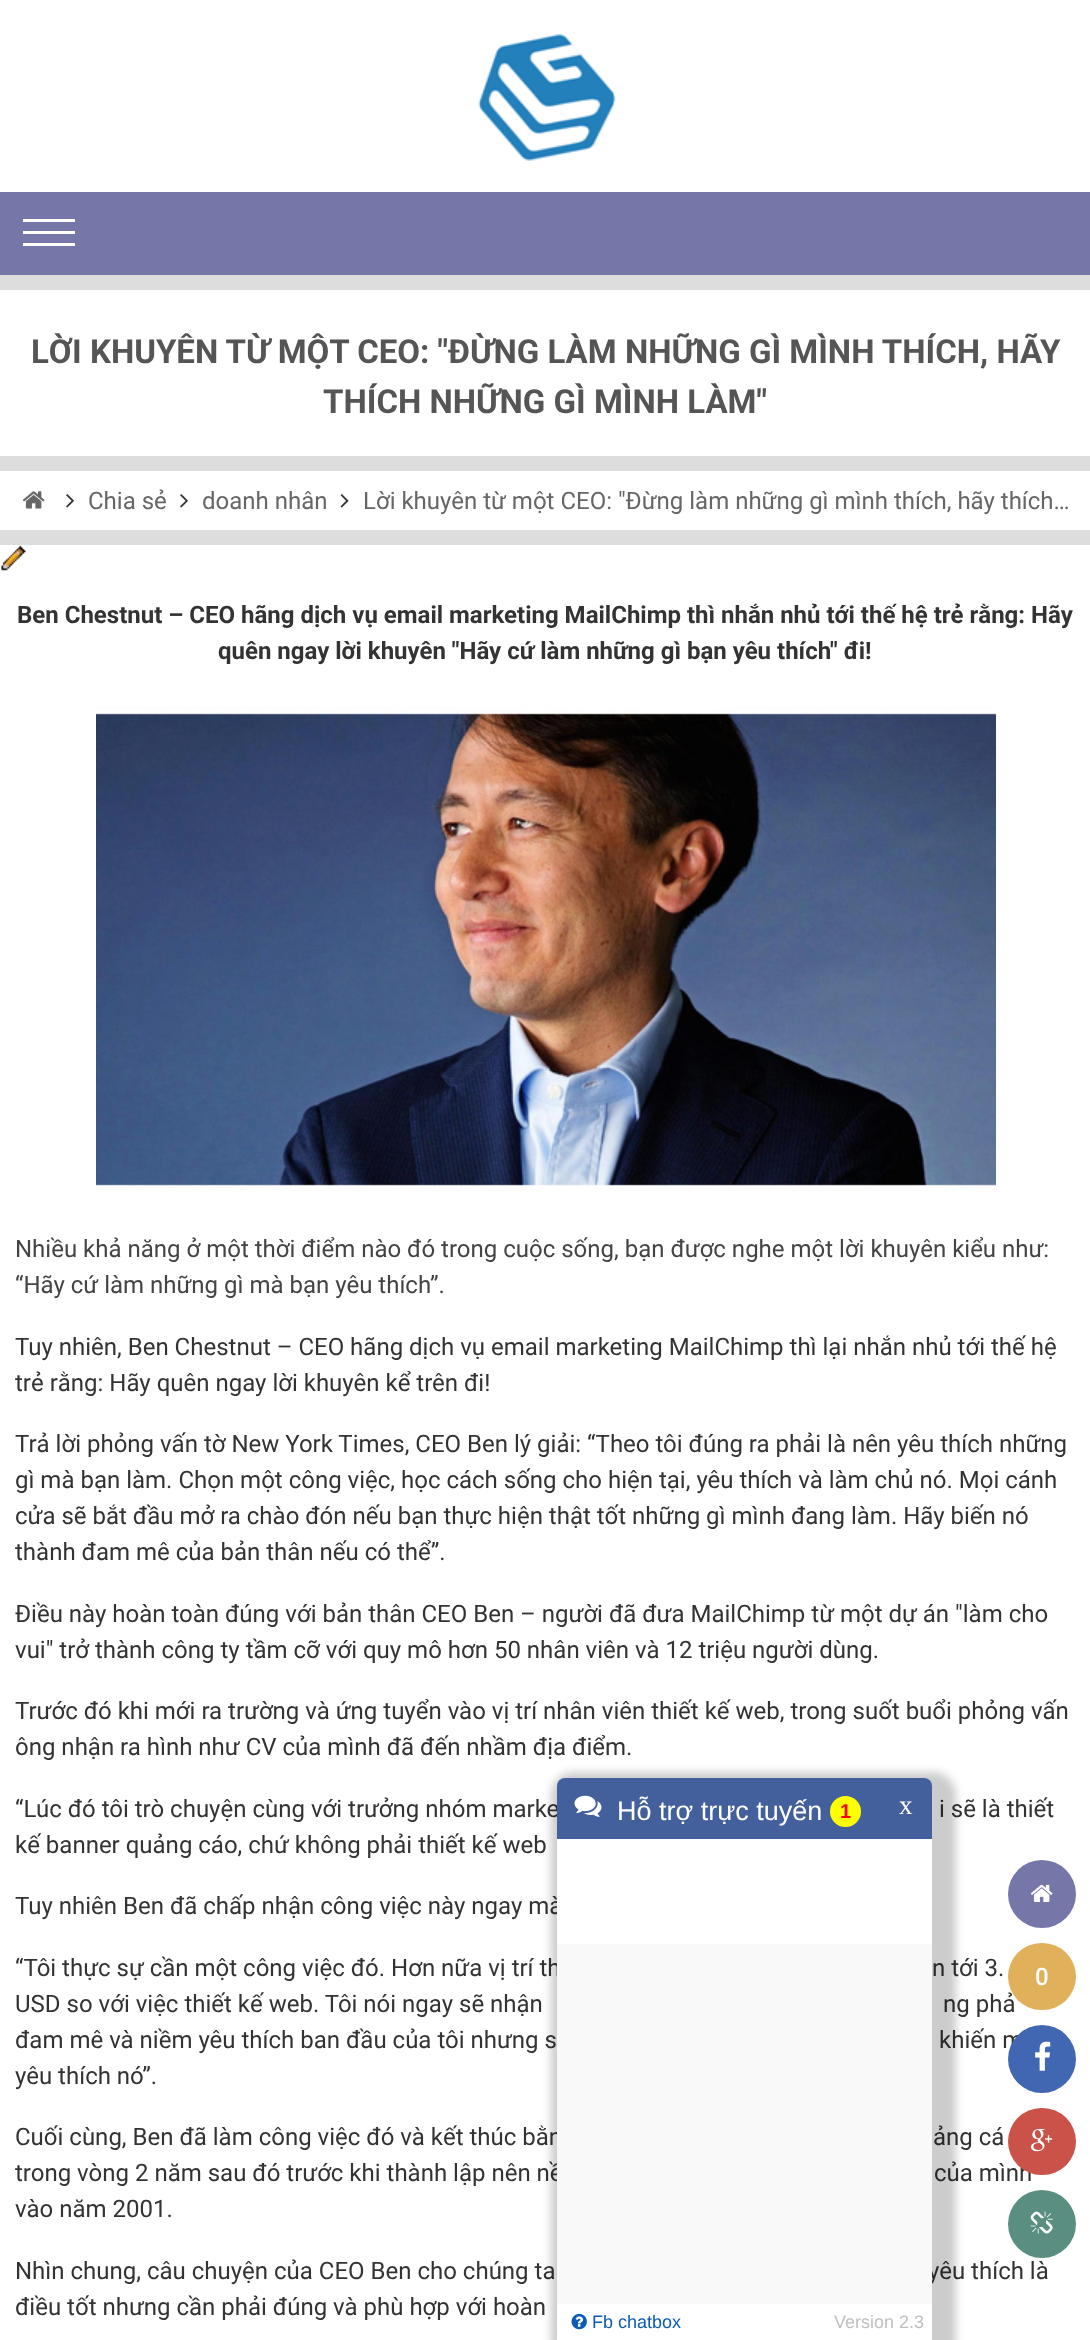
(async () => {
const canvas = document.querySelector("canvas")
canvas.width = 1090
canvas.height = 2340
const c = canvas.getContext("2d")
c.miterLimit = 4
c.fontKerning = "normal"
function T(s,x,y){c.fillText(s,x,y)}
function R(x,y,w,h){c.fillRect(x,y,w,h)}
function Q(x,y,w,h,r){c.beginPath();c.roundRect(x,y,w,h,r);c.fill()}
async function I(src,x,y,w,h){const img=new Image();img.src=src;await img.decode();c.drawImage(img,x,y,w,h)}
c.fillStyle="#ddd"
R(0,0,1090,2340)
c.fillStyle="#fff"
R(0,0,1090,192)
await I("1.png",478,34,138,127)
c.fillStyle="#7577a9"
R(0,192,1090,83)
c.fillStyle="#fff"
R(23,219,52,3)
R(23,231,52,3)
R(23,243,52,3)
R(0,290,1090,166)
c.font="bold 33px Roboto"
c.fillStyle="#555"
T("LỜI KHUYÊN TỪ MỘT CEO: \"ĐỪNG LÀM NHỮNG GÌ MÌNH THÍCH, HÃY",31,363)
T("THÍCH NHỮNG GÌ MÌNH LÀM\"",323,413)
c.fillStyle="#fff"
R(0,471,1090,59)
await I("2.png",22,491,23,18)
await I("3.png",66,494,8,14)
c.font="24px Roboto"
c.fillStyle="#666"
T("Chia sẻ",88,509)
await I("3.png",180,494,8,14)
T("doanh nhân",202,509)
await I("4.png",340,494,9,14)
T("Lời khuyên từ một CEO: \"Đừng làm những gì mình thích, hãy thích…",363,509)
c.fillStyle="#fff"
R(0,545,1090,1795)
await I("5.png",1,545,25,26)
c.font="bold 24px Roboto"
c.fillStyle="#333"
T("Ben Chestnut – CEO hãng dịch vụ email marketing MailChimp thì nhắn nhủ tới thế hệ trẻ rằng: Hãy",17,623)
T("quên ngay lời khuyên \"Hãy cứ làm những gì bạn yêu thích\" đi!",218,659)
await I("6.png",96,707,900,479)
c.font="24px Roboto"
c.fillStyle="#444"
T("Nhiều khả năng ở một thời điểm nào đó trong cuộc sống, bạn được nghe một lời khuyên kiểu như:",15,1257)
T("“Hãy cứ làm những gì mà bạn yêu thích”.",15,1293)
c.fillStyle="#333"
T("Tuy nhiên, Ben Chestnut – CEO hãng dịch vụ email marketing MailChimp thì lại nhắn nhủ tới thế hệ",15,1355)
T("trẻ rằng: Hãy quên ngay lời khuyên kể trên đi!",15,1391)
T("Trả lời phỏng vấn tờ New York Times, CEO Ben lý giải: “Theo tôi đúng ra phải là nên yêu thích những",15,1452)
T("gì mà bạn làm. Chọn một công việc, học cách sống cho hiện tại, yêu thích và làm chủ nó. Mọi cánh",15,1488)
T("cửa sẽ bắt đầu mở ra chào đón nếu bạn thực hiện thật tốt những gì mình đang làm. Hãy biến nó",15,1524)
T("thành đam mê của bản thân nếu có thể”.",15,1560)
T("Điều này hoàn toàn đúng với bản thân CEO Ben – người đã đưa MailChimp từ một dự án \"làm cho",15,1622)
T("vui\" trở thành công ty tầm cỡ với quy mô hơn 50 nhân viên và 12 triệu người dùng.",15,1658)
T("Trước đó khi mới ra trường và ứng tuyển vào vị trí nhân viên thiết kế web, trong suốt buổi phỏng vấn",15,1719)
T("ông nhận ra hình như CV của mình đã đến nhầm địa điểm.",15,1755)
T("“Lúc đó tôi trò chuyện cùng với trưởng nhóm marke",15,1817)
T("i sẽ là thiết",939,1817)
T("kế banner quảng cáo, chứ không phải thiết kế web",15,1853)
T("Tuy nhiên Ben đã chấp nhận công việc này ngay mà",15,1914)
T("“Tôi thực sự cần một công việc đó. Hơn nữa vị trí th",15,1976)
T("n tới 3.",932,1976)
T("USD so với việc thiết kế web. Tôi nói ngay sẽ nhận",15,2012)
T("ng phả",943,2012)
T("đam mê và niềm yêu thích ban đầu của tôi nhưng s",15,2048)
T("khiến m",939,2048)
T("yêu thích nó”.",15,2084)
T("Cuối cùng, Ben đã làm công việc đó và kết thúc bằn",15,2145)
T("ảng cá",933,2145)
T("trong vòng 2 năm sau đó trước khi thành lập nên nề",15,2181)
T("của mình",934,2181)
T("vào năm 2001.",15,2217)
T("Nhìn chung, câu chuyện của CEO Ben cho chúng ta",15,2279)
T("yêu thích là",928,2279)
T("điều tốt nhưng cần phải đúng và phù hợp với hoàn",15,2315)
c.fillStyle="#7577a9"
c.beginPath()
c.arc(1042,1894,34,0,7)
c.fill()
await I("7.png",1030,1884,23,18)
c.fillStyle="#e0b15a"
Q(1008,1943,68,67,33.5)
c.font="500 24px Roboto"
c.fillStyle="#fff"
T("0",1035,1985)
c.fillStyle="#4267b2"
c.beginPath()
c.arc(1042,2059,34,0,7)
c.fill()
await I("8.png",1035,2041,16,30)
c.fillStyle="#ca5248"
Q(1008,2108,68,67,33.5)
await I("9.png",1030,2128,23,24)
c.fillStyle="#598e80"
c.beginPath()
c.arc(1042,2224,34,0,7)
c.fill()
await I("10.png",1030,2211,23,23)
c.fillStyle="#00000033"
c.filter="blur(4.5px)"
c.beginPath()
c.roundRect(551,1772,405,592,23)
c.fill()
c.filter="none"
c.fillStyle="#43609c"
c.beginPath()
c.roundRect(557,1778,375,61,[8,8,0,0])
c.fill()
await I("11.png",574,1795,28,22)
c.font="27px Liberation Sans"
c.fillStyle="#fff"
T("Hỗ trợ trực tuyến",617,1820)
c.fillStyle="#ff0"
c.beginPath()
c.arc(845.5,1811.5,15.5,0,7)
c.fill()
c.font="bold 20px Liberation Sans"
c.fillStyle="#f00"
T("1",840,1818)
c.font="27px Liberation Serif"
c.fillStyle="#fff"
T("x",899,1814)
R(557,1839,375,105)
c.fillStyle="#f9f9f9"
R(557,1944,375,360)
c.fillStyle="#fff"
R(557,2304,375,36)
await I("12.png",571,2313,16,17)
c.font="18px Liberation Sans"
c.fillStyle="#0c5bb5"
T("Fb chatbox",592,2328)
c.fillStyle="#c0c0c0"
T("Version 2.3",834,2328)
})()
